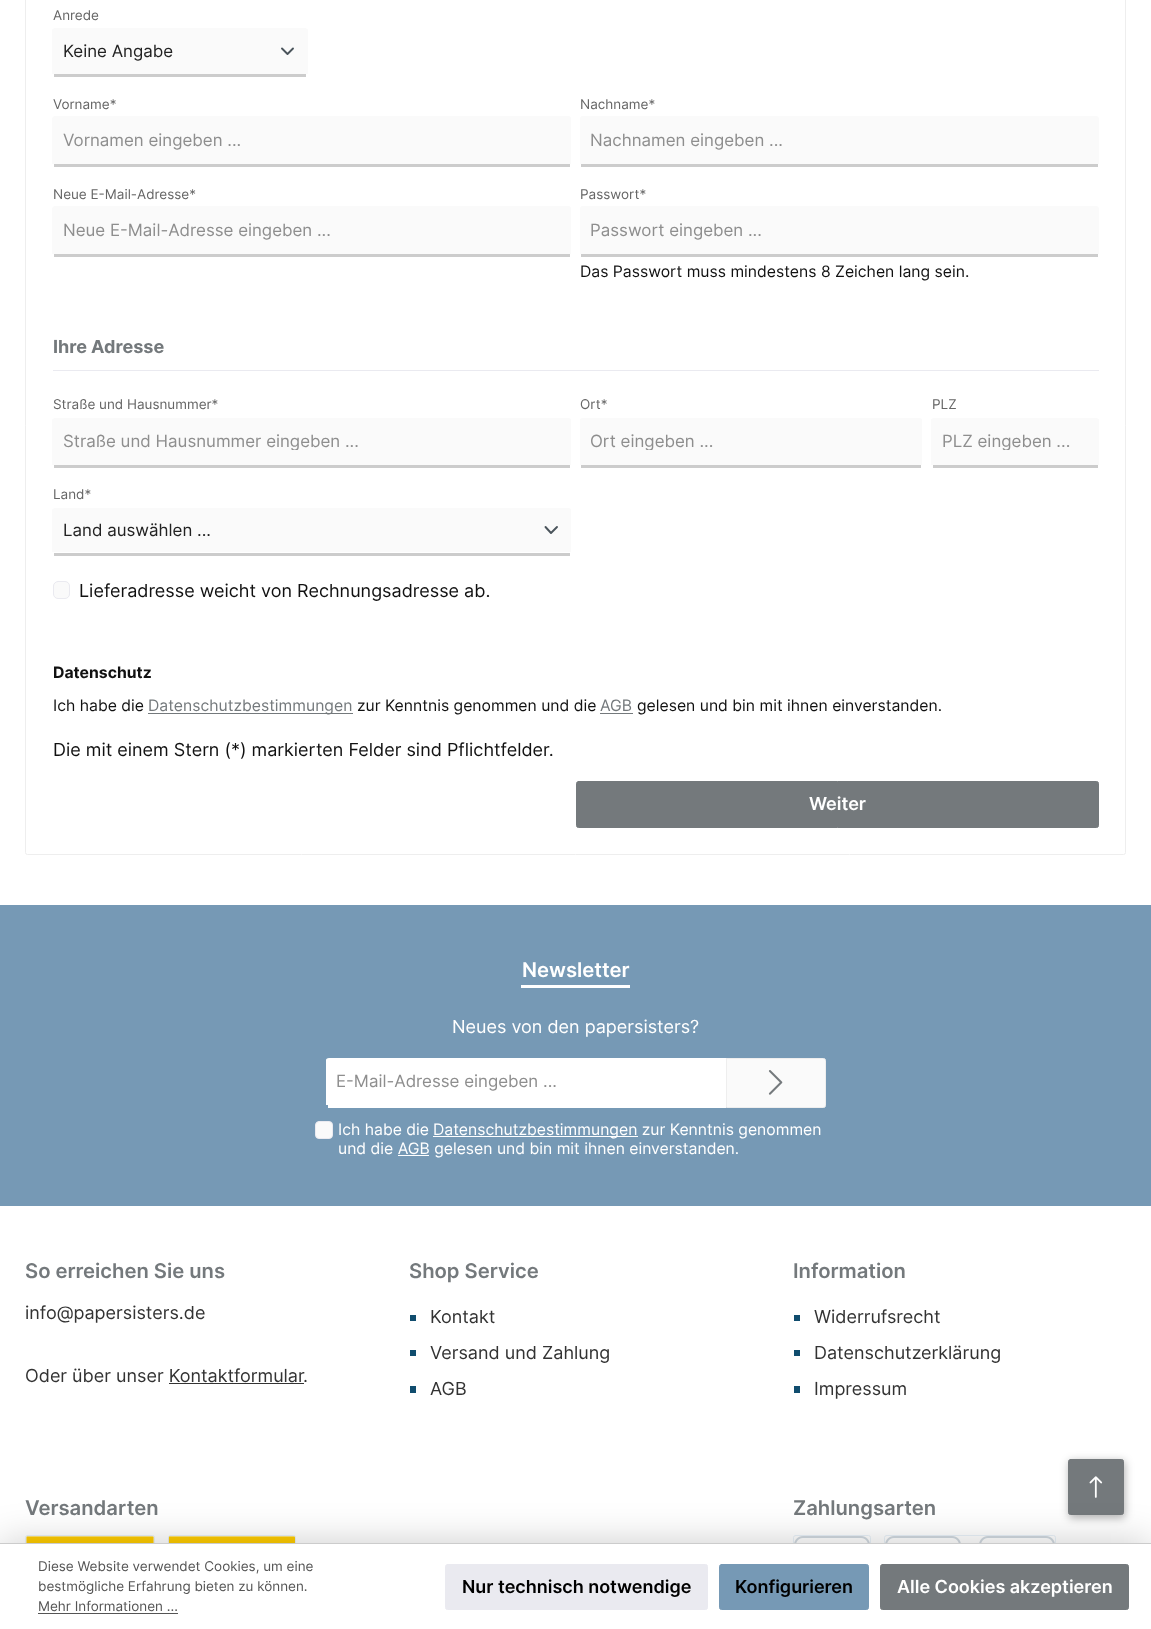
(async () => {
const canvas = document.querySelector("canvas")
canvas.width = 1151
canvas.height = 1629
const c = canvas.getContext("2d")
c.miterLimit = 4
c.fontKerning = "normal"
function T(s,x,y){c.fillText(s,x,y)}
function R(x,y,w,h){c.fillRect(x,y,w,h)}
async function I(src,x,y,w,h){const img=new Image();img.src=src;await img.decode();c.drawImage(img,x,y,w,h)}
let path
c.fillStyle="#fff"
R(0,0,1151,1629)
c.beginPath()
c.roundRect(25.5,-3.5,1100,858,2)
c.strokeStyle="#eee"
c.stroke()
c.font="13.5px Inter"
c.fillStyle="#666"
T("Anrede",53,20)
c.fillStyle="#fafafa"
path = new Path2D("M55 28h250c1 0 3 1 3 2v44h-256v-44c0-1 2-2 3-2z")
c.fill(path)
path = new Path2D("M282 48.5l5.5 5.5l5.5-5.5")
c.strokeStyle="#4a545b"
c.lineWidth=1.9
c.lineCap="round"
c.lineJoin="round"
c.stroke(path)
c.fillStyle="#ccc"
R(54,74,252,3)
c.font="16.9px Inter"
c.fillStyle="#222"
T("Keine Angabe",63,57)
c.font="13.5px Inter"
c.fillStyle="#666"
T("Vorname*",53,109)
c.fillStyle="#fafafa"
path = new Path2D("M55 116h514c1 0 2 1 2 3v45h-519v-45c0-2 2-3 3-3z")
c.fill(path)
c.fillStyle="#ccc"
R(54,164,516,3)
c.font="16.9px Inter"
c.fillStyle="#8e8e8e"
T("Vornamen eingeben ...",63,146)
c.font="13.5px Inter"
c.fillStyle="#666"
T("Nachname*",580,109)
c.fillStyle="#fafafa"
path = new Path2D("M582 116h514c2 0 3 1 3 3v45h-519v-45c0-2 1-3 2-3z")
c.fill(path)
c.fillStyle="#ccc"
R(581,164,517,3)
c.font="16.9px Inter"
c.fillStyle="#8e8e8e"
T("Nachnamen eingeben ...",590,146)
c.font="13.5px Inter"
c.fillStyle="#666"
T("Neue E-Mail-Adresse*",53,199)
c.fillStyle="#fafafa"
path = new Path2D("M55 206h514c1 0 2 1 2 3v45h-519v-45c0-2 2-3 3-3z")
c.fill(path)
c.fillStyle="#ccc"
R(54,254,516,3)
c.font="16.9px Inter"
c.fillStyle="#8e8e8e"
T("Neue E-Mail-Adresse eingeben ...",63,236)
c.font="13.5px Inter"
c.fillStyle="#666"
T("Passwort*",580,199)
c.fillStyle="#fafafa"
path = new Path2D("M582 206h514c2 0 3 1 3 3v45h-519v-45c0-2 1-3 2-3z")
c.fill(path)
c.fillStyle="#ccc"
R(581,254,517,3)
c.font="16.9px Inter"
c.fillStyle="#8e8e8e"
T("Passwort eingeben ...",590,236)
c.font="15.75px Inter"
c.fillStyle="#111"
T("Das Passwort muss mindestens 8 Zeichen lang sein.",580,277)
c.fillStyle="#eaeaf0"
R(53,370,1046,1)
c.font="bold 18px Inter"
c.fillStyle="#74797c"
T("Ihre Adresse",53,353)
c.font="13.5px Inter"
c.fillStyle="#666"
T("Straße und Hausnummer*",53,409)
c.fillStyle="#fafafa"
path = new Path2D("M55 418h514c1 0 2 1 2 2v45h-519v-45c0-1 2-2 3-2z")
c.fill(path)
c.fillStyle="#ccc"
R(54,465,516,3)
c.save()
c.beginPath()
c.rect(63,430,498,20)
c.clip()
c.font="16.9px Inter"
c.fillStyle="#8e8e8e"
T("Straße und Hausnummer eingeben ...",63,447)
c.restore()
c.fillStyle="#666"
T("Ort*",580,409)
c.fillStyle="#fafafa"
path = new Path2D("M582 418h338c1 0 2 1 2 2v45h-342v-45c0-1 1-2 2-2z")
c.fill(path)
c.fillStyle="#ccc"
R(581,465,340,3)
c.save()
c.beginPath()
c.rect(590,430,323,20)
c.clip()
c.font="16.9px Inter"
c.fillStyle="#8e8e8e"
T("Ort eingeben ...",590,447)
c.restore()
c.fillStyle="#666"
T("PLZ",932,409)
c.fillStyle="#fafafa"
path = new Path2D("M934 418h162c2 0 3 1 3 2v45h-168v-45c0-1 1-2 3-2z")
c.fill(path)
c.fillStyle="#ccc"
R(933,465,165,3)
c.save()
c.beginPath()
c.rect(943,430,146,20)
c.clip()
c.font="16.9px Inter"
c.fillStyle="#8e8e8e"
T("PLZ eingeben ...",942,447)
c.restore()
c.fillStyle="#666"
T("Land*",53,499)
c.fillStyle="#fafafa"
path = new Path2D("M55 508h514c1 0 2 1 2 2v42h-519v-42c0-1 2-2 3-2z")
c.fill(path)
path = new Path2D("M545.5 527l5.5 6l6-6")
c.stroke(path)
c.fillStyle="#ccc"
R(54,553,516,3)
c.font="16.9px Inter"
c.fillStyle="#222"
T("Land auswählen ...",63,536)
c.fillStyle="#fafafa"
c.beginPath()
c.roundRect(53.5,581.5,16,17,4.5)
c.fill()
c.strokeStyle="#eaeaf0"
c.lineWidth=1
c.lineJoin="miter"
c.stroke()
c.font="18px Inter"
c.fillStyle="#111"
T("Lieferadresse weicht von Rechnungsadresse ab.",79,597)
c.font="bold 15.75px Inter"
T("Datenschutz",53,678)
c.font="15.75px Inter"
T("Ich habe die",53,711)
c.fillStyle="#74797c"
R(148,713,205,1)
T("Datenschutzbestimmungen",148,711)
c.fillStyle="#111"
T("zur Kenntnis genommen und die",357,711)
c.fillStyle="#74797c"
T("AGB",600,711)
R(600,713,33,1)
c.fillStyle="#111"
T("gelesen und bin mit ihnen einverstanden.",637,711)
c.font="18px Inter"
T("Die mit einem Stern (*) markierten Felder sind Pflichtfelder.",53,756)
c.fillStyle="#74797c"
c.beginPath()
c.roundRect(576.5,781.5,522,46,2)
c.fill()
c.strokeStyle="#74797c"
c.stroke()
c.font="600 18px Inter"
c.fillStyle="#fff"
T("Weiter",809,810)
c.fillStyle="#7699b5"
R(0,905,1151,301)
c.fillStyle="#fff"
R(521,985,109,3)
c.font="600 20.25px Inter"
T("Newsletter",522,977)
c.font="18px Inter"
T("Neues von den papersisters?",452,1033)
path = new Path2D("M329 1058h397v47h-400v-45c0-1 1-2 3-2z")
c.fill(path)
R(328,1105,398,3)
c.font="16.9px Inter"
c.fillStyle="#8e8e8e"
T("E-Mail-Adresse eingeben ...",336,1087)
c.fillStyle="#fafafa"
c.beginPath()
c.roundRect(726.5,1058.5,99,49,[0,2,2,0])
c.fill()
c.strokeStyle="#eee"
c.stroke()
await I("1.png",768,1070,15,25)
c.beginPath()
c.roundRect(315.5,1121.5,17,17,3.5)
c.fill()
c.strokeStyle="#eaeaf0"
c.stroke()
c.font="15.75px Inter"
c.fillStyle="#fff"
T("Ich habe die",338,1135)
R(433,1136,205,1)
T("Datenschutzbestimmungen zur Kenntnis genommen",433,1135)
T("und die AGB gelesen und bin mit ihnen einverstanden.",338,1154)
R(398,1155,31,1)
c.font="600 20.25px Inter"
c.fillStyle="#74797c"
T("So erreichen Sie uns",25,1278)
c.font="18px Inter"
c.fillStyle="#333"
T("info@papersisters.de",25,1319)
T("Oder über unser Kontaktformular",25,1382)
T(".",303,1382)
R(169,1383,135,1)
c.font="600 20.25px Inter"
c.fillStyle="#74797c"
T("Shop Service",409,1278)
c.fillStyle="#104d6e"
R(410,1315,6,6)
c.font="18px Inter"
c.fillStyle="#333"
T("Kontakt",430,1323)
c.fillStyle="#104d6e"
R(410,1350,6,6)
c.fillStyle="#333"
T("Versand und Zahlung",430,1359)
c.fillStyle="#104d6e"
R(410,1386,6,7)
c.fillStyle="#333"
T("AGB",430,1395)
c.font="600 20.25px Inter"
c.fillStyle="#74797c"
T("Information",793,1278)
c.fillStyle="#104d6e"
R(794,1315,6,6)
c.font="18px Inter"
c.fillStyle="#333"
T("Widerrufsrecht",814,1323)
c.fillStyle="#104d6e"
R(794,1350,6,6)
c.fillStyle="#333"
T("Datenschutzerklärung",814,1359)
c.fillStyle="#104d6e"
R(794,1386,6,7)
c.fillStyle="#333"
T("Impressum",814,1395)
c.font="600 20.25px Inter"
c.fillStyle="#74797c"
T("Versandarten",25,1515)
c.beginPath()
c.roundRect(25.5,1535.5,129,55,2)
c.strokeStyle="#e9f2f9"
c.stroke()
await I("2.png",26,1536,128,7)
c.beginPath()
c.roundRect(168.5,1535.5,127,55,2)
c.stroke()
await I("3.png",168,1536,127,7)
T("Zahlungsarten",793,1515)
c.beginPath()
c.roundRect(793.5,1535.5,77,55,2)
c.stroke()
await I("4.png",794,1536,76,7)
c.beginPath()
c.roundRect(884.5,1535.5,171,55,2)
c.stroke()
await I("5.png",885,1536,170,7)
c.fillStyle="#0000004d"
c.filter="blur(4px)"
c.beginPath()
c.roundRect(1069,1461,56,57,2.5)
c.fill()
c.filter="none"
c.fillStyle="#74797c"
c.beginPath()
c.roundRect(1068.5,1459.5,55,55,2)
c.fill()
c.strokeStyle="#74797c"
c.stroke()
await I("6.png",1089,1476,14,22)
c.fillStyle="#00000033"
c.filter="blur(19px)"
c.beginPath()
c.rect(0,1543,1151,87)
c.fill()
c.filter="none"
c.fillStyle="#fff"
R(0,1544,1151,85)
c.fillStyle="#ccc"
R(0,1543,1151,1)
c.font="13.5px Inter"
c.fillStyle="#555"
T("Diese Website verwendet Cookies, um eine",38,1571)
T("bestmögliche Erfahrung bieten zu können.",38,1591)
T("Mehr Informationen ...",38,1611)
R(38,1613,140,1)
c.fillStyle="#eaeaf0"
c.beginPath()
c.roundRect(445.5,1564.5,262,45,2)
c.fill()
c.strokeStyle="#eaeaf0"
c.stroke()
c.font="600 18px Inter"
c.fillStyle="#000"
T("Nur technisch notwendige",462,1593)
c.fillStyle="#7699b5"
c.beginPath()
c.roundRect(719.5,1564.5,149,45,2)
c.fill()
c.strokeStyle="#7699b5"
c.stroke()
c.fillStyle="#000"
T("Konfigurieren",735,1593)
c.fillStyle="#74797c"
c.beginPath()
c.roundRect(880.5,1564.5,248,45,2)
c.fill()
c.strokeStyle="#74797c"
c.stroke()
c.fillStyle="#fff"
T("Alle Cookies akzeptieren",897,1593)
})()
